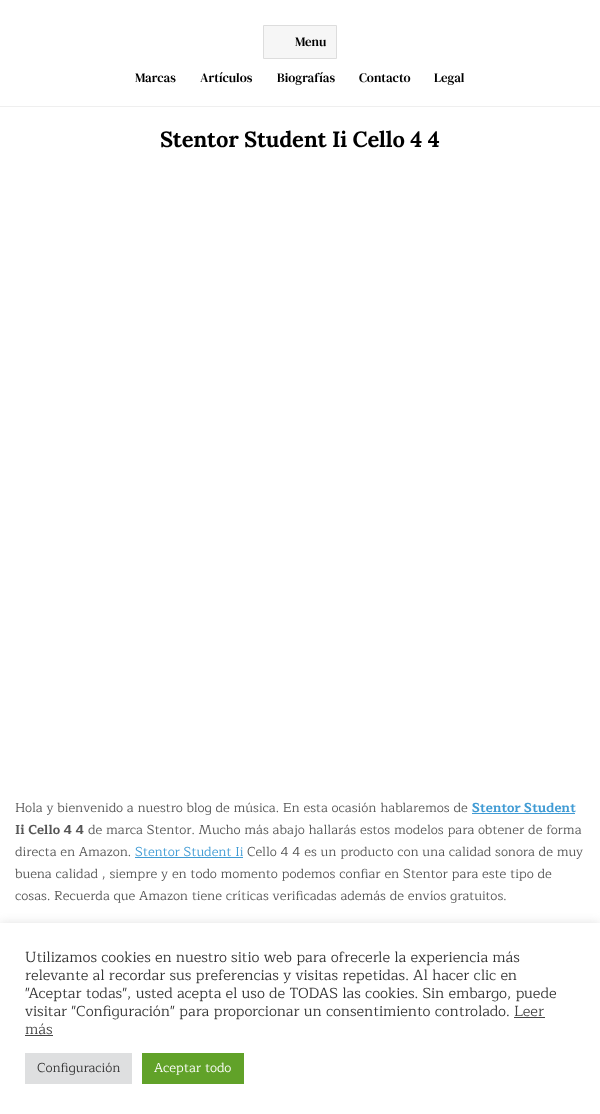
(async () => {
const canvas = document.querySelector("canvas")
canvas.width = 600
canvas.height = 1114
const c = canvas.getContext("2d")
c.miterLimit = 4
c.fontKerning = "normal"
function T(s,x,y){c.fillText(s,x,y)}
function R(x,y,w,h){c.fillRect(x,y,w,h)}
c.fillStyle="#fff"
R(0,0,600,1114)
c.fillStyle="#efefef"
R(0,106,600,1)
c.fillStyle="#f6f6f6"
c.beginPath()
c.rect(263.5,25.5,73,33)
c.fill()
c.strokeStyle="#ddd"
c.stroke()
c.font="13px DM Serif Text"
c.fillStyle="#000"
T("Menu",295,46)
T("Marcas",135,82)
T("Artículos",200,82)
T("Biografías",277,82)
T("Contacto",359,82)
T("Legal",434,82)
c.letterSpacing="-0.2px"
c.font="bold 22px Lora"
T("Stentor Student Ii Cello 4 4",160,147)
c.letterSpacing="0px"
c.font="13px Maitree"
c.fillStyle="#555"
T("Hola y bienvenido a nuestro blog de música. En esta ocasión hablaremos de",15,812)
c.font="bold 13px Maitree"
c.fillStyle="#409bd4"
T("Stentor Student",472,812)
R(472,813,103,1)
c.fillStyle="#555"
T("Ii Cello 4 4",15,834)
c.font="13px Maitree"
T("de marca Stentor. Mucho más abajo hallarás estos modelos para obtener de forma",88,834)
T("directa en Amazon.",15,856)
c.fillStyle="#409bd4"
T("Stentor Student Ii",135,856)
R(135,857,108,1)
c.fillStyle="#555"
T("Cello 4 4 es un producto con una calidad sonora de muy",247,856)
T("buena calidad , siempre y en todo momento podemos confiar en Stentor para este tipo de",15,878)
T("cosas. Recuerda que Amazon tiene críticas verificadas además de envíos gratuitos.",15,900)
c.fillStyle="#acabab4d"
c.filter="blur(5px)"
c.beginPath()
c.rect(0,922,600,191)
c.fill()
c.filter="none"
c.fillStyle="#fff"
R(0,923,600,191)
c.font="14.65px Maitree"
c.fillStyle="#333"
T("Utilizamos cookies en nuestro sitio web para ofrecerle la experiencia más",25,962)
T("relevante al recordar sus preferencias y visitas repetidas. Al hacer clic en",25,980)
T("\"Aceptar todas\", usted acepta el uso de TODAS las cookies. Sin embargo, puede",25,998)
T("visitar \"Configuración\" para proporcionar un consentimiento controlado.",25,1016)
c.fillStyle="#444"
T("Leer",514,1016)
R(514,1017,31,1)
T("más",25,1034)
R(25,1035,28,1)
c.fillStyle="#dedfe0"
R(25,1053,107,31)
c.font="13px Maitree"
c.fillStyle="#333"
T("Configuración",37,1072)
c.fillStyle="#61a229"
R(142,1053,102,31)
c.fillStyle="#fff"
T("Aceptar todo",154,1072)
})()
